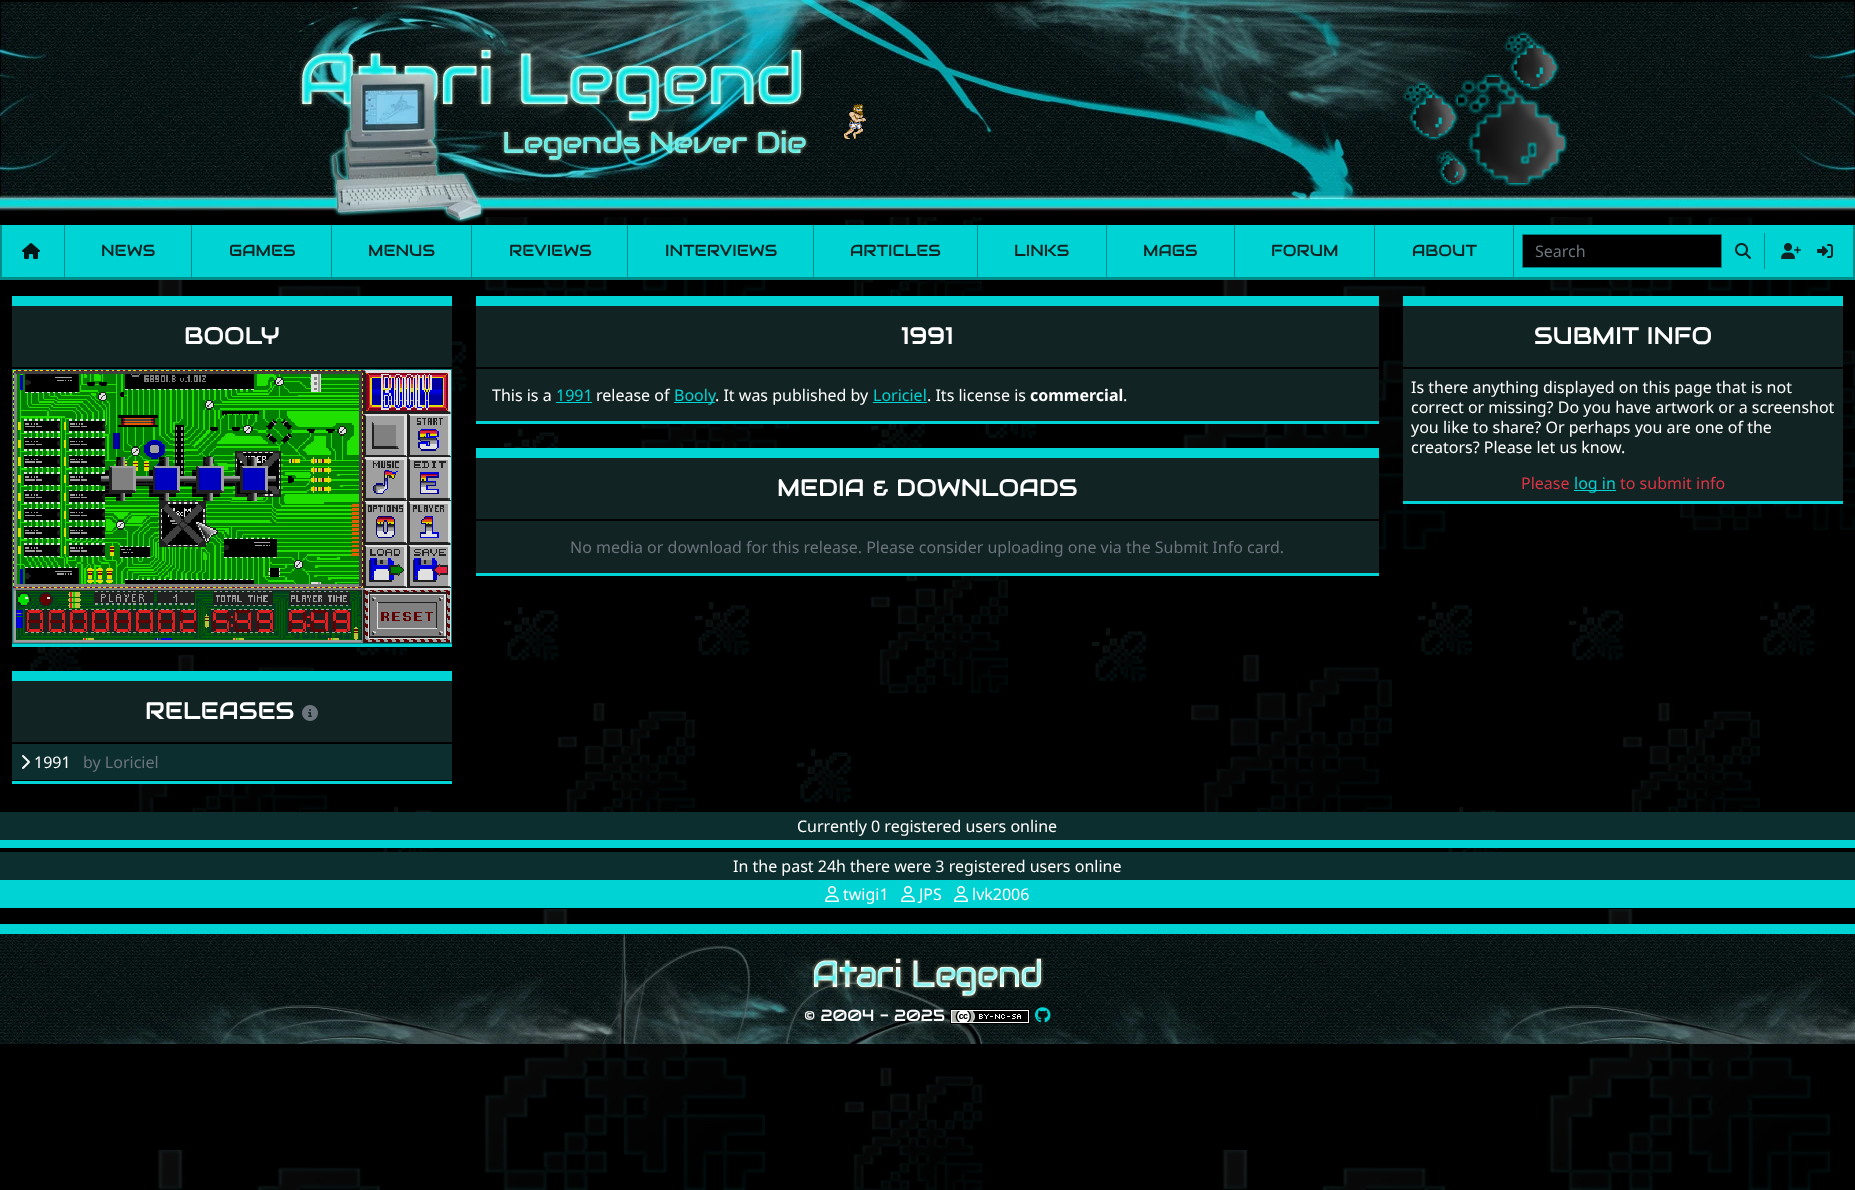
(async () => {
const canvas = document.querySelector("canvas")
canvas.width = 1855
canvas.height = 1190
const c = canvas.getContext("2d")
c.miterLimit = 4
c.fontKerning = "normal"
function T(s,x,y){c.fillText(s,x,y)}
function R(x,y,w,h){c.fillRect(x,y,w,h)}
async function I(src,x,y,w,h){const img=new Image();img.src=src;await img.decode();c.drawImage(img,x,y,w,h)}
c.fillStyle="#000"
R(0,0,1855,1190)
await I("1.png",30,217,1825,973)
await I("2.png",0,0,1855,217)
await I("3.png",288,0,1280,211)
await I("4.png",299,46,510,177)
await I("5.png",843,104,23,35)
await I("6.png",1402,31,166,156)
c.fillStyle="#00d3d3"
R(2,225,1851,52)
c.fillStyle="#008b8b"
R(1853,225,2,55)
R(0,277,1855,3)
R(0,225,2,55)
await I("7.png",22,243,18,16)
R(64,225,1,52)
c.font="16px Audiowide"
c.fillStyle="#122323"
T("NEWS",101,256)
c.fillStyle="#008b8b"
R(191,225,1,52)
c.fillStyle="#122323"
T("GAMES",229,256)
c.fillStyle="#008b8b"
R(331,225,1,52)
c.fillStyle="#122323"
T("MENUS",368,256)
c.fillStyle="#008b8b"
R(471,225,1,52)
c.fillStyle="#122323"
T("REVIEWS",509,256)
c.fillStyle="#008b8b"
R(627,225,1,52)
c.fillStyle="#122323"
T("INTERVIEWS",665,256)
c.fillStyle="#008b8b"
R(813,225,1,52)
c.fillStyle="#122323"
T("ARTICLES",850,256)
c.fillStyle="#008b8b"
R(977,225,1,52)
c.fillStyle="#122323"
T("LINKS",1014,256)
c.fillStyle="#008b8b"
R(1106,225,1,52)
c.fillStyle="#122323"
T("MAGS",1143,256)
c.fillStyle="#008b8b"
R(1234,225,1,52)
c.fillStyle="#122323"
T("FORUM",1271,256)
c.fillStyle="#008b8b"
R(1513,225,1,52)
R(1374,225,1,52)
c.fillStyle="#122323"
T("ABOUT",1412,256)
c.fillStyle="#000"
c.beginPath()
c.rect(1522.5,234.5,199,33)
c.fill()
c.strokeStyle="#007f7f"
c.stroke()
c.font="16px Noto Sans"
c.fillStyle="#6c757d"
T("Search",1535,257)
await I("8.png",1735,243,16,16)
c.fillStyle="#008b8b"
R(1764,233,1,36)
await I("9.png",1781,243,20,16)
await I("10.png",1817,244,16,14)
c.fillStyle="#122323"
R(12,306,440,61)
c.fillStyle="#00d3d3"
R(12,296,440,10)
R(12,644,440,3)
c.fillStyle="#000"
R(139,367,313,2)
c.font="24px Audiowide"
c.fillStyle="#fff"
T("BOOLY",184,344)
c.strokeRect(12.5,369.5,439,274)
await I("11.png",13,370,438,273)
c.fillStyle="#122323"
R(12,681,440,61)
c.fillStyle="#00d3d3"
R(12,671,440,10)
R(12,781,440,3)
c.fillStyle="#000"
R(165,742,149,2)
c.fillStyle="#fff"
T("RELEASES",145,719)
await I("12.png",302,705,16,16)
c.fillStyle="#0d2e2e"
R(12,744,440,36)
c.fillStyle="#000"
R(151,780,163,1)
await I("13.png",22,755,8,14)
c.font="16px Noto Sans"
c.fillStyle="#fff"
T("1991",34,768)
c.fillStyle="#6c757d"
T("by Loriciel",83,768)
c.fillStyle="#122323"
R(476,306,903,115)
c.fillStyle="#00d3d3"
R(476,296,903,10)
R(476,421,903,3)
c.fillStyle="#000"
R(476,367,903,2)
c.font="24px Audiowide"
c.fillStyle="#fff"
T("1991",901,344)
c.font="16px Noto Sans"
T("This is a",492,401)
c.fillStyle="#00d3d3"
T("1991",556,401)
R(556,402,36,1)
c.fillStyle="#fff"
T("release of",596,401)
c.fillStyle="#00d3d3"
R(674,402,41,1)
T("Booly",674,401)
c.fillStyle="#fff"
T(". It was published by",715,401)
c.fillStyle="#00d3d3"
T("Loriciel",873,401)
R(873,402,54,1)
c.fillStyle="#fff"
T(". Its license is",927,401)
c.font="bold 16px Noto Sans"
T("commercial",1030,401)
c.font="16px Noto Sans"
T(".",1123,401)
c.fillStyle="#122323"
R(476,458,903,115)
c.fillStyle="#00d3d3"
R(476,448,903,10)
R(476,573,903,3)
c.fillStyle="#000"
R(476,519,903,2)
c.font="24px Audiowide"
c.fillStyle="#fff"
T("MEDIA & DOWNLOADS",777,496)
c.font="16px Noto Sans"
c.fillStyle="#6c757d"
T("No media or download for this release. Please consider uploading one via the Submit Info card.",570,553)
c.fillStyle="#122323"
R(1403,306,440,195)
c.fillStyle="#00d3d3"
R(1403,296,440,10)
R(1403,501,440,3)
c.fillStyle="#000"
R(1403,367,440,2)
c.font="24px Audiowide"
c.fillStyle="#fff"
T("SUBMIT INFO",1534,344)
c.font="16px Noto Sans"
T("Is there anything displayed on this page that is not",1411,393)
T("correct or missing? Do you have artwork or a screenshot",1411,413)
T("you like to share? Or perhaps you are one of the",1411,433)
T("creators? Please let us know.",1411,453)
c.fillStyle="#dc3545"
T("Please",1521,489)
c.fillStyle="#00d3d3"
R(1574,490,42,1)
T("log in",1574,489)
c.fillStyle="#dc3545"
T("to submit info",1620,489)
c.fillStyle="#0d2e2e"
R(0,812,1855,28)
c.fillStyle="#fff"
T("Currently 0 registered users online",797,832)
c.fillStyle="#00d3d3"
R(0,840,1855,8)
c.fillStyle="#0d2e2e"
R(0,852,1855,28)
c.fillStyle="#fff"
T("In the past 24h there were 3 registered users online",733,872)
c.fillStyle="#00d3d3"
R(0,880,1855,28)
await I("14.png",825,886,14,16)
c.fillStyle="#fff"
T("twigi1",843,900)
await I("14.png",901,886,14,16)
T("JPS",919,900)
await I("14.png",954,886,14,16)
T("lvk2006",972,900)
await I("15.png",0,934,1855,110)
c.fillStyle="#00d3d3"
R(0,924,1855,10)
await I("16.png",812,958,232,41)
c.font="16px Audiowide"
c.fillStyle="#fff"
T("© 2004 - 2025",804,1021)
await I("17.png",950,1009,80,15)
await I("18.png",1035,1007,16,16)
})()
